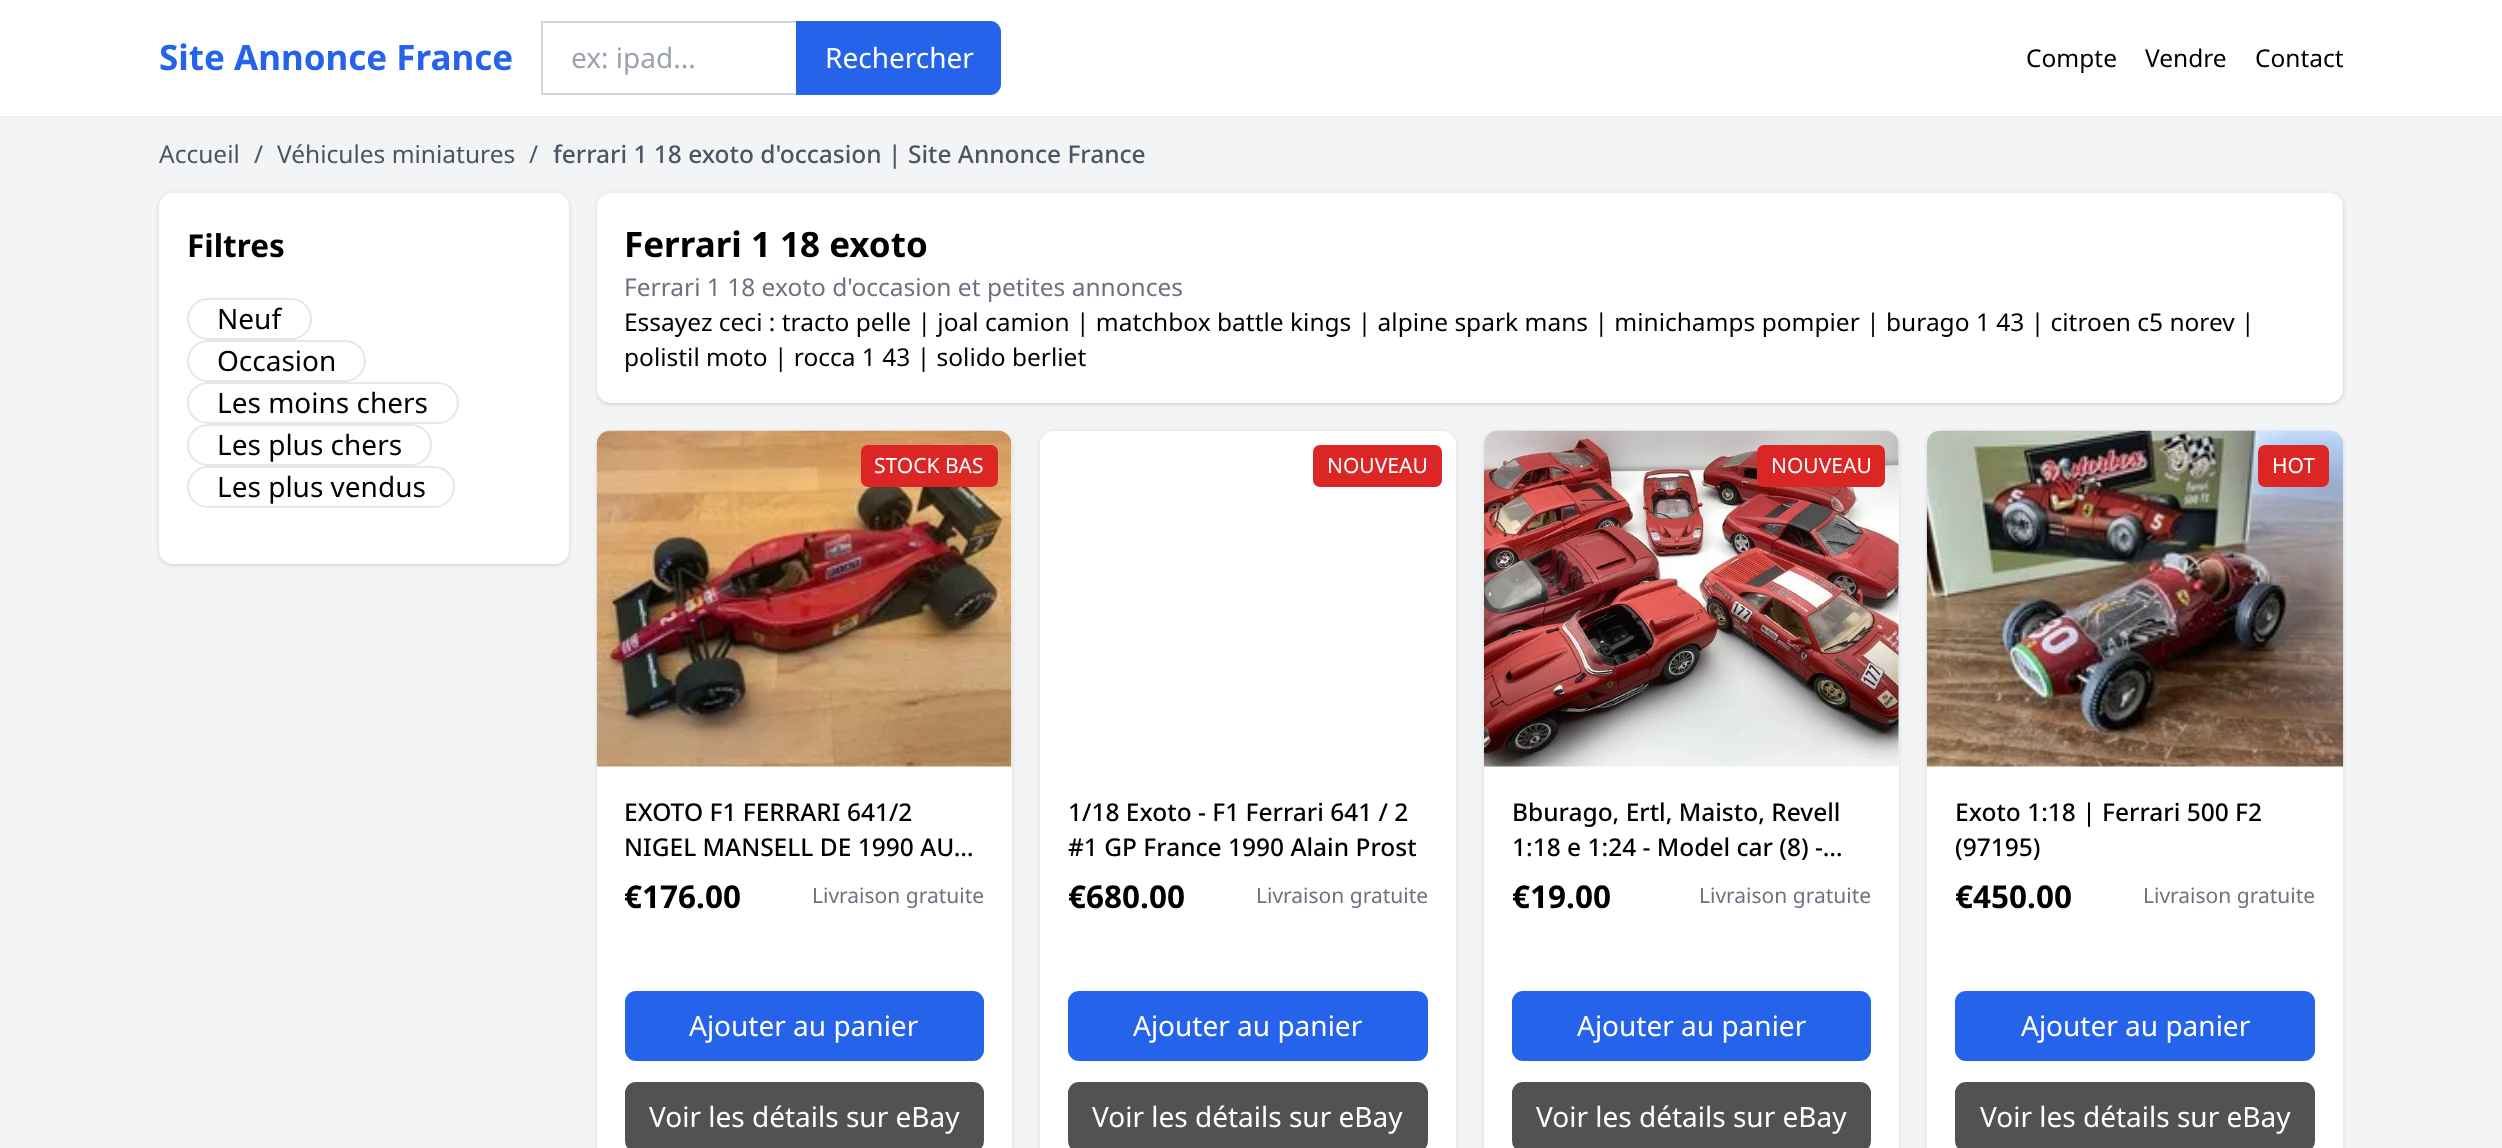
(async () => {
const canvas = document.querySelector("canvas")
canvas.width = 2502
canvas.height = 1148
const c = canvas.getContext("2d")
c.miterLimit = 4
c.fontKerning = "normal"
function T(s,x,y){c.fillText(s,x,y)}
function R(x,y,w,h){c.fillRect(x,y,w,h)}
function Q(x,y,w,h,r){c.beginPath();c.roundRect(x,y,w,h,r);c.fill()}
async function I(src,x,y,w,h){const img=new Image();img.src=src;await img.decode();c.drawImage(img,x,y,w,h)}
c.fillStyle="#f3f4f6"
R(0,0,2502,1148)
c.fillStyle="#0000000d"
c.filter="blur(2px)"
c.beginPath()
c.rect(0,2,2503,115)
c.fill()
c.filter="none"
c.fillStyle="#fff"
R(0,0,2502,116)
c.font="bold 35px Noto Sans"
c.fillStyle="#2563eb"
T("Site Annonce France",159,70)
c.beginPath()
c.roundRect(542,22,458,72,[0,10,10,0])
c.strokeStyle="#d1d5db"
c.lineWidth=2
c.stroke()
c.font="28px Noto Sans"
c.fillStyle="#9ca3af"
T("ex: ipad...",571,68)
c.fillStyle="#2563eb"
c.beginPath()
c.roundRect(796,21,205,74,[0,11,11,0])
c.fill()
c.fillStyle="#fff"
T("Rechercher",825,68)
c.font="24.5px Noto Sans"
c.fillStyle="#000"
T("Compte",2026,67)
T("Vendre",2145,67)
T("Contact",2255,67)
c.fillStyle="#4b5563"
T("Accueil",159,163)
T("/",254,163)
T("Véhicules miniatures",277,163)
T("/",529,163)
c.font="500 24.5px Noto Sans"
T("ferrari 1 18 exoto d'occasion | Site Annonce France",553,163)
c.fillStyle="#0000001a"
c.filter="blur(2px)"
c.beginPath()
c.roundRect(161,196,406,368,12)
c.fill()
c.filter="none"
c.filter="blur(2.5px)"
c.beginPath()
c.roundRect(159,194,410,371,14)
c.fill()
c.filter="none"
c.fillStyle="#fff"
Q(159,193,410,371,14)
c.font="bold 31.5px Noto Sans"
c.fillStyle="#000"
T("Filtres",187,257)
c.beginPath()
c.roundRect(188,299,123,40,20)
c.strokeStyle="#e5e7eb"
c.stroke()
c.font="28px Noto Sans"
T("Neuf",217,329)
c.beginPath()
c.roundRect(188,341,177,40,20)
c.stroke()
T("Occasion",217,371)
c.beginPath()
c.roundRect(188,383,270,40,20)
c.stroke()
T("Les moins chers",217,413)
c.beginPath()
c.roundRect(188,425,243,40,20)
c.stroke()
T("Les plus chers",217,455)
c.beginPath()
c.roundRect(188,467,266,40,20)
c.stroke()
T("Les plus vendus",217,497)
c.fillStyle="#0000001a"
c.filter="blur(2px)"
c.beginPath()
c.roundRect(599,196,1743,207,12)
c.fill()
c.filter="none"
c.filter="blur(2.5px)"
c.beginPath()
c.roundRect(597,194,1746,210,14)
c.fill()
c.filter="none"
c.fillStyle="#fff"
Q(597,193,1746,210,14)
c.font="bold 35px Noto Sans"
c.fillStyle="#000"
T("Ferrari 1 18 exoto",624,257)
c.font="24.5px Noto Sans"
c.fillStyle="#6b7280"
T("Ferrari 1 18 exoto d'occasion et petites annonces",624,296)
c.fillStyle="#000"
T("Essayez ceci : tracto pelle | joal camion | matchbox battle kings | alpine spark mans | minichamps pompier | burago 1 43 | citroen c5 norev |",624,331)
T("polistil moto | rocca 1 43 | solido berliet",624,366)
c.fillStyle="#0000001a"
c.filter="blur(2.5px)"
c.beginPath()
c.roundRect(597,432,415,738,14)
c.fill()
c.filter="none"
c.fillStyle="#fff"
Q(597,431,415,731,14)
await I("1.png",596,430,416,337)
c.fillStyle="#dc2626"
Q(861,445,137,42,7)
c.font="21px Noto Sans"
c.fillStyle="#fff"
T("STOCK BAS",874,473)
c.font="500 24.5px Noto Sans"
c.fillStyle="#000"
T("EXOTO F1 FERRARI 641/2",624,821)
T("NIGEL MANSELL DE 1990 AU…",624,856)
c.font="bold 31.5px Noto Sans"
T("€176.00",624,908)
c.font="21px Noto Sans"
c.fillStyle="#6b7280"
T("Livraison gratuite",812,903)
c.fillStyle="#2563eb"
Q(625,991,359,70,11)
c.font="28px Noto Sans"
c.fillStyle="#fff"
T("Ajouter au panier",689,1036)
c.fillStyle="#525252"
Q(625,1082,359,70,11)
c.fillStyle="#fff"
T("Voir les détails sur eBay",649,1127)
c.fillStyle="#0000001a"
c.filter="blur(2.5px)"
c.beginPath()
c.roundRect(1040,432,416,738,14)
c.fill()
c.filter="none"
c.fillStyle="#fff"
Q(1040,431,416,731,14)
c.fillStyle="#dc2626"
Q(1313,445,129,42,7)
c.font="21px Noto Sans"
c.fillStyle="#fff"
T("NOUVEAU",1327,473)
c.font="500 24.5px Noto Sans"
c.fillStyle="#000"
T("1/18 Exoto - F1 Ferrari 641 / 2",1068,821)
T("#1 GP France 1990 Alain Prost",1068,856)
c.font="bold 31.5px Noto Sans"
T("€680.00",1068,908)
c.font="21px Noto Sans"
c.fillStyle="#6b7280"
T("Livraison gratuite",1256,903)
c.fillStyle="#2563eb"
Q(1068,991,360,70,11)
c.font="28px Noto Sans"
c.fillStyle="#fff"
T("Ajouter au panier",1133,1036)
c.fillStyle="#525252"
Q(1068,1082,360,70,11)
c.fillStyle="#fff"
T("Voir les détails sur eBay",1092,1127)
c.fillStyle="#0000001a"
c.filter="blur(2.5px)"
c.beginPath()
c.roundRect(1484,432,415,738,14)
c.fill()
c.filter="none"
c.fillStyle="#fff"
Q(1484,431,415,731,14)
await I("2.png",1484,430,415,337)
c.fillStyle="#dc2626"
Q(1757,445,128,42,7)
c.font="21px Noto Sans"
c.fillStyle="#fff"
T("NOUVEAU",1771,473)
c.font="500 24.5px Noto Sans"
c.fillStyle="#000"
T("Bburago, Ertl, Maisto, Revell",1512,821)
T("1:18 e 1:24 - Model car (8) -…",1512,856)
c.font="bold 31.5px Noto Sans"
T("€19.00",1512,908)
c.font="21px Noto Sans"
c.fillStyle="#6b7280"
T("Livraison gratuite",1699,903)
c.fillStyle="#2563eb"
Q(1512,991,359,70,11)
c.font="28px Noto Sans"
c.fillStyle="#fff"
T("Ajouter au panier",1577,1036)
c.fillStyle="#525252"
Q(1512,1082,359,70,11)
c.fillStyle="#fff"
T("Voir les détails sur eBay",1536,1127)
c.fillStyle="#0000001a"
c.filter="blur(2.5px)"
c.beginPath()
c.roundRect(1927,432,416,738,14)
c.fill()
c.filter="none"
c.fillStyle="#fff"
Q(1927,431,416,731,14)
await I("3.png",1926,430,418,337)
c.fillStyle="#dc2626"
Q(2258,445,71,42,7)
c.font="21px Noto Sans"
c.fillStyle="#fff"
T("HOT",2272,473)
c.font="500 24.5px Noto Sans"
c.fillStyle="#000"
T("Exoto 1:18 | Ferrari 500 F2",1955,821)
T("(97195)",1955,856)
c.font="bold 31.5px Noto Sans"
T("€450.00",1955,908)
c.font="21px Noto Sans"
c.fillStyle="#6b7280"
T("Livraison gratuite",2143,903)
c.fillStyle="#2563eb"
Q(1955,991,360,70,11)
c.font="28px Noto Sans"
c.fillStyle="#fff"
T("Ajouter au panier",2021,1036)
c.fillStyle="#525252"
Q(1955,1082,360,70,11)
c.fillStyle="#fff"
T("Voir les détails sur eBay",1980,1127)
})()
